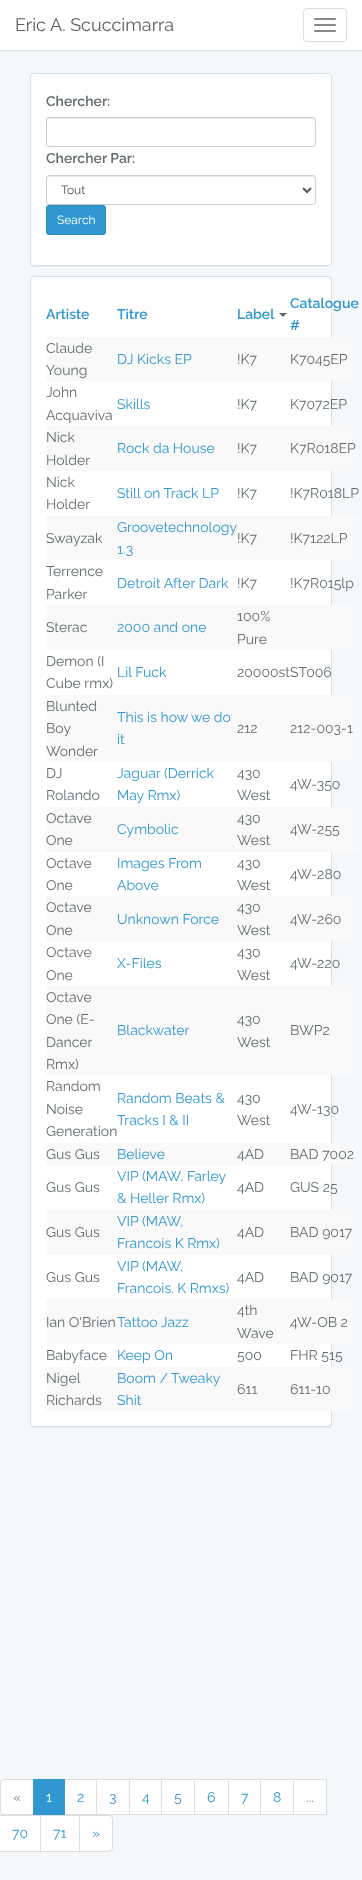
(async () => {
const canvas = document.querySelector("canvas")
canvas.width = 362
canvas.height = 1880
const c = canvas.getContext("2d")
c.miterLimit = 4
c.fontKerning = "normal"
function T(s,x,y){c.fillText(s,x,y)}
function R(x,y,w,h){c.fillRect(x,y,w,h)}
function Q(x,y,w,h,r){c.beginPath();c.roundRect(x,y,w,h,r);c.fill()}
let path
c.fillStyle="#f5f8fa"
R(0,0,362,1880)
c.fillStyle="#fff"
R(0,0,362,50)
c.fillStyle="#d3e0e9"
R(0,50,362,1)
c.font="18px Raleway"
c.fillStyle="#5e5e5e"
T("Eric A. Scuccimarra",15,31)
c.beginPath()
c.roundRect(303.5,8.5,43,33,3.5)
c.strokeStyle="#ddd"
c.stroke()
c.fillStyle="#888"
Q(314,18,22,2,1)
Q(314,24,22,2,1)
Q(314,30,22,2,1)
c.fillStyle="#0000000d"
c.filter="blur(0.5px)"
c.beginPath()
c.roundRect(30,74,302,193,4)
c.fill()
c.filter="none"
c.fillStyle="#fff"
c.beginPath()
c.roundRect(30.5,73.5,301,192,3.5)
c.fill()
c.strokeStyle="#d3e0e9"
c.stroke()
c.font="600 14px Raleway"
c.fillStyle="#636b6f"
T("Chercher:",46,106)
c.fillStyle="#ececec"
path = new Path2D("M49 119h264c1 0 2 1 2 2v-2l-2-1h-264c-2 0-2 2-2 3c0-1 1-2 2-2z")
c.fill(path)
c.beginPath()
c.roundRect(46.5,117.5,269,29,2.5)
c.strokeStyle="#ccd0d2"
c.stroke()
c.fillStyle="#636b6f"
T("Chercher Par:",46,163)
c.fillStyle="#ececec"
path = new Path2D("M49 177h264c1 0 2 1 2 2v-2l-2-1h-264c-2 0-2 2-2 3c0-1 1-2 2-2z")
c.fill(path)
c.beginPath()
c.roundRect(46.5,175.5,269,29,2.5)
c.stroke()
path = new Path2D("M303 188l4 4l4-4")
c.strokeStyle="#555"
c.lineWidth=2
c.stroke(path)
c.font="12px Raleway"
c.fillStyle="#555"
T("Tout",61,194)
c.fillStyle="#3097d1"
c.beginPath()
c.roundRect(46.5,205.5,59,29,2.5)
c.fill()
c.strokeStyle="#2a88bd"
c.lineWidth=1
c.stroke()
c.fillStyle="#fff"
T("Search",57,224)
c.fillStyle="#0000000d"
c.filter="blur(0.5px)"
c.beginPath()
c.roundRect(30,277,302,1151,4)
c.fill()
c.filter="none"
c.fillStyle="#fff"
c.beginPath()
c.roundRect(30.5,276.5,301,1150,3.5)
c.fill()
c.strokeStyle="#d3e0e9"
c.stroke()
c.font="600 14px Raleway"
c.fillStyle="#3097d1"
T("Artiste",46,319)
T("Titre",117,319)
T("Label",237,319)
c.fillStyle="#636b6f"
path = new Path2D("M279 313h8l-4 4z")
c.fill(path)
c.fillStyle="#3097d1"
T("Catalogue",290,308)
T("#",290,330)
c.fillStyle="#f9f9f9"
R(46,337,313,44)
c.font="14px Raleway"
c.fillStyle="#636b6f"
T("Claude",46,353)
T("Young",46,375)
c.fillStyle="#3097d1"
T("DJ Kicks EP",117,364)
c.fillStyle="#636b6f"
T("!K7",237,364)
T("K7045EP",290,364)
T("John",46,397)
T("Acquaviva",46,420)
c.fillStyle="#3097d1"
T("Skills",117,409)
c.fillStyle="#636b6f"
T("!K7",237,409)
T("K7072EP",290,409)
c.fillStyle="#f9f9f9"
R(46,426,313,45)
c.fillStyle="#636b6f"
T("Nick",46,442)
T("Holder",46,465)
c.fillStyle="#3097d1"
T("Rock da House",117,453)
c.fillStyle="#636b6f"
T("!K7",237,453)
T("K7R018EP",290,453)
T("Nick",46,487)
T("Holder",46,509)
c.fillStyle="#3097d1"
T("Still on Track LP",117,498)
c.fillStyle="#636b6f"
T("!K7",237,498)
T("!K7R018LP",290,498)
c.fillStyle="#f9f9f9"
R(46,516,313,44)
c.fillStyle="#636b6f"
T("Swayzak",46,543)
c.fillStyle="#3097d1"
T("Groovetechnology",117,532)
T("1.3",117,554)
c.fillStyle="#636b6f"
T("!K7",237,543)
T("!K7122LP",290,543)
T("Terrence",46,576)
T("Parker",46,599)
c.fillStyle="#3097d1"
T("Detroit After Dark",117,588)
c.fillStyle="#636b6f"
T("!K7",237,588)
T("!K7R015lp",290,588)
c.fillStyle="#f9f9f9"
R(46,605,313,45)
c.fillStyle="#636b6f"
T("Sterac",46,632)
c.fillStyle="#3097d1"
T("2000 and one",117,632)
c.fillStyle="#636b6f"
T("100%",237,621)
T("Pure",237,644)
T("Demon (I",46,666)
T("Cube rmx)",46,688)
c.fillStyle="#3097d1"
T("Lil Fuck",117,677)
c.fillStyle="#636b6f"
T("20000stST006",237,677)
c.fillStyle="#f9f9f9"
R(46,695,313,67)
c.fillStyle="#636b6f"
T("Blunted",46,711)
T("Boy",46,733)
T("Wonder",46,756)
c.fillStyle="#3097d1"
T("This is how we do",117,722)
T("it",117,744)
c.fillStyle="#636b6f"
T("212",237,733)
T("212-003-1",290,733)
T("DJ",46,778)
T("Rolando",46,800)
c.fillStyle="#3097d1"
T("Jaguar (Derrick",117,778)
T("May Rmx)",117,800)
c.fillStyle="#636b6f"
T("430",237,778)
T("West",237,800)
T("4W-350",290,789)
c.fillStyle="#f9f9f9"
R(46,807,313,45)
c.fillStyle="#636b6f"
T("Octave",46,823)
T("One",46,845)
c.fillStyle="#3097d1"
T("Cymbolic",117,834)
c.fillStyle="#636b6f"
T("430",237,823)
T("West",237,845)
T("4W-255",290,834)
T("Octave",46,868)
T("One",46,890)
c.fillStyle="#3097d1"
T("Images From",117,868)
T("Above",117,890)
c.fillStyle="#636b6f"
T("430",237,868)
T("West",237,890)
T("4W-280",290,879)
c.fillStyle="#f9f9f9"
R(46,896,313,45)
c.fillStyle="#636b6f"
T("Octave",46,912)
T("One",46,935)
c.fillStyle="#3097d1"
T("Unknown Force",117,924)
c.fillStyle="#636b6f"
T("430",237,912)
T("West",237,935)
T("4W-260",290,924)
T("Octave",46,957)
T("One",46,980)
c.fillStyle="#3097d1"
T("X-Files",117,968)
c.fillStyle="#636b6f"
T("430",237,957)
T("West",237,980)
T("4W-220",290,968)
c.fillStyle="#f9f9f9"
R(46,986,313,89)
c.fillStyle="#636b6f"
T("Octave",46,1002)
T("One (E-",46,1024)
T("Dancer",46,1047)
T("Rmx)",46,1069)
c.fillStyle="#3097d1"
T("Blackwater",117,1035)
c.fillStyle="#636b6f"
T("430",237,1024)
T("West",237,1047)
T("BWP2",290,1035)
T("Random",46,1091)
T("Noise",46,1114)
T("Generation",46,1136)
c.fillStyle="#3097d1"
T("Random Beats &",117,1103)
T("Tracks I & II",117,1125)
c.fillStyle="#636b6f"
T("430",237,1103)
T("West",237,1125)
T("4W-130",290,1114)
c.fillStyle="#f9f9f9"
R(46,1143,313,22)
c.fillStyle="#636b6f"
T("Gus Gus",46,1159)
c.fillStyle="#3097d1"
T("Believe",117,1159)
c.fillStyle="#636b6f"
T("4AD",237,1159)
T("BAD 7002",290,1159)
T("Gus Gus",46,1192)
c.fillStyle="#3097d1"
T("VIP (MAW, Farley",117,1181)
T("& Heller Rmx)",117,1203)
c.fillStyle="#636b6f"
T("4AD",237,1192)
T("GUS 25",290,1192)
c.fillStyle="#f9f9f9"
R(46,1210,313,45)
c.fillStyle="#636b6f"
T("Gus Gus",46,1237)
c.fillStyle="#3097d1"
T("VIP (MAW,",117,1226)
T("Francois K Rmx)",117,1248)
c.fillStyle="#636b6f"
T("4AD",237,1237)
T("BAD 9017",290,1237)
T("Gus Gus",46,1282)
c.fillStyle="#3097d1"
T("VIP (MAW,",117,1271)
T("Francois. K Rmxs)",117,1293)
c.fillStyle="#636b6f"
T("4AD",237,1282)
T("BAD 9017",290,1282)
c.fillStyle="#f9f9f9"
R(46,1299,313,45)
c.fillStyle="#636b6f"
T("Ian O'Brien",46,1327)
c.fillStyle="#3097d1"
T("Tattoo Jazz",117,1327)
c.fillStyle="#636b6f"
T("4th",237,1315)
T("Wave",237,1338)
T("4W-OB 2",290,1327)
T("Babyface",46,1360)
c.fillStyle="#3097d1"
T("Keep On",117,1360)
c.fillStyle="#636b6f"
T("500",237,1360)
T("FHR 515",290,1360)
c.fillStyle="#f9f9f9"
R(46,1367,313,44)
c.fillStyle="#636b6f"
T("Nigel",46,1383)
T("Richards",46,1405)
c.fillStyle="#3097d1"
T("Boom / Tweaky",117,1383)
T("Shit",117,1405)
c.fillStyle="#636b6f"
T("611",237,1394)
T("611-10",290,1394)
c.fillStyle="#fff"
c.beginPath()
c.roundRect(.5,1779.5,33,35,[3.5,0,0,3.5])
c.fill()
c.strokeStyle="#ddd"
c.stroke()
c.fillStyle="#777"
T("«",13,1802)
c.fillStyle="#fff"
c.beginPath()
c.rect(64.5,1779.5,32,35)
c.fill()
c.stroke()
c.fillStyle="#3097d1"
R(33,1779,32,36)
c.fillStyle="#fff"
T("1",46,1802)
c.fillStyle="#3097d1"
T("2",77,1802)
c.fillStyle="#fff"
c.beginPath()
c.rect(96.5,1779.5,33,35)
c.fill()
c.stroke()
c.fillStyle="#3097d1"
T("3",109,1802)
c.fillStyle="#fff"
c.beginPath()
c.rect(129.5,1779.5,32,35)
c.fill()
c.stroke()
c.fillStyle="#3097d1"
T("4",142,1802)
c.fillStyle="#fff"
c.beginPath()
c.rect(161.5,1779.5,33,35)
c.fill()
c.stroke()
c.fillStyle="#3097d1"
T("5",174,1802)
c.fillStyle="#fff"
c.beginPath()
c.rect(194.5,1779.5,34,35)
c.fill()
c.stroke()
c.fillStyle="#3097d1"
T("6",207,1802)
c.fillStyle="#fff"
c.beginPath()
c.rect(228.5,1779.5,32,35)
c.fill()
c.stroke()
c.fillStyle="#3097d1"
T("7",241,1802)
c.fillStyle="#fff"
c.beginPath()
c.rect(260.5,1779.5,33,35)
c.fill()
c.stroke()
c.fillStyle="#3097d1"
T("8",273,1802)
c.fillStyle="#fff"
c.beginPath()
c.rect(293.5,1779.5,33,35)
c.fill()
c.stroke()
c.fillStyle="#777"
T("...",306,1802)
c.fillStyle="#fff"
c.beginPath()
c.rect(-.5,1815.5,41,36)
c.fill()
c.stroke()
c.fillStyle="#3097d1"
T("70",12,1838)
c.fillStyle="#fff"
c.beginPath()
c.rect(40.5,1815.5,39,36)
c.fill()
c.stroke()
c.fillStyle="#3097d1"
T("71",53,1838)
c.fillStyle="#fff"
c.beginPath()
c.roundRect(79.5,1815.5,33,36,[0,3.5,3.5,0])
c.fill()
c.stroke()
c.fillStyle="#3097d1"
T("»",92,1838)
})()
